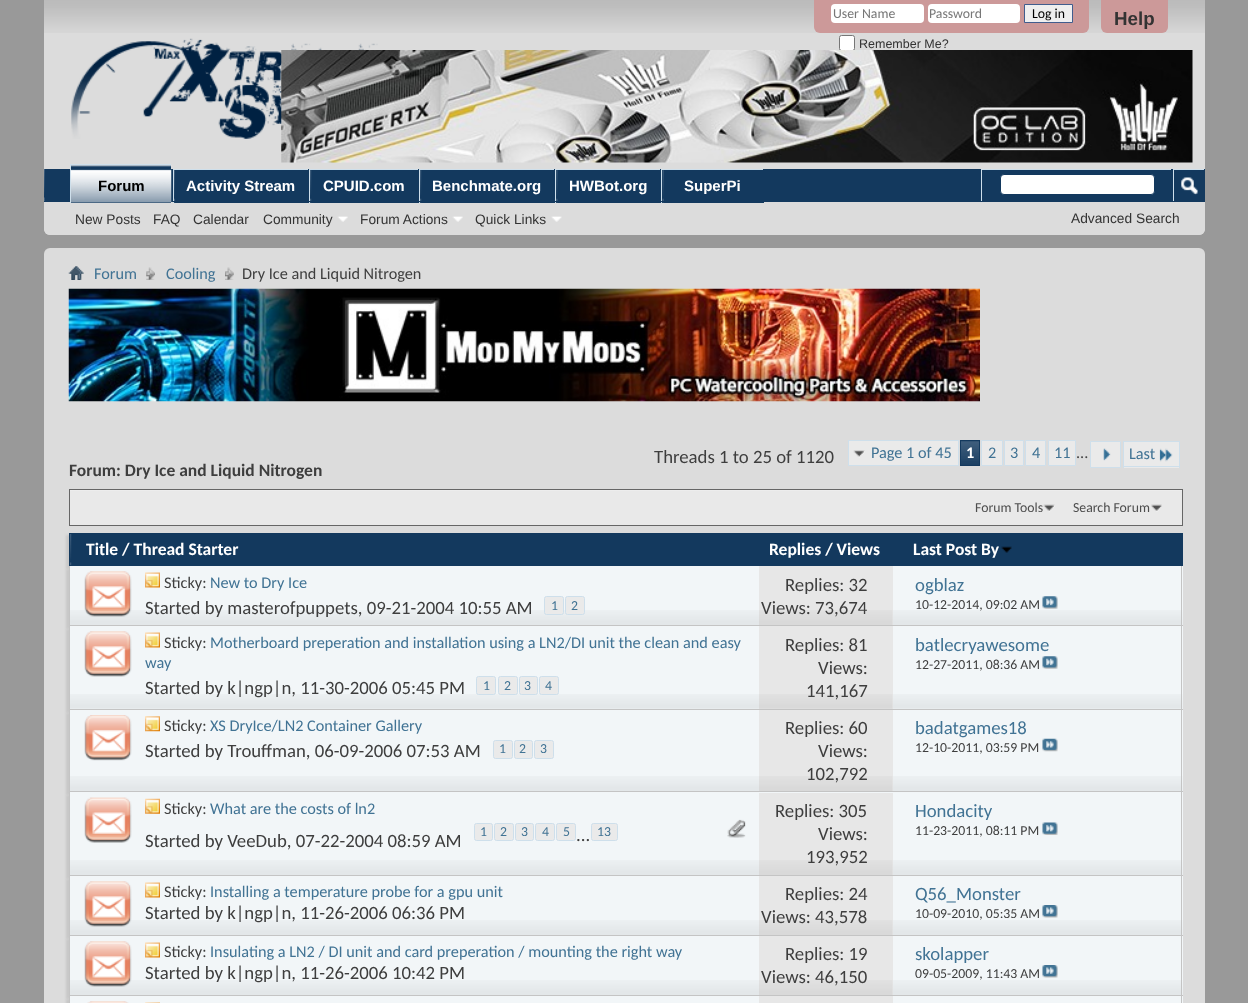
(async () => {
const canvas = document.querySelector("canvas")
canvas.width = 1248
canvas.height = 1003
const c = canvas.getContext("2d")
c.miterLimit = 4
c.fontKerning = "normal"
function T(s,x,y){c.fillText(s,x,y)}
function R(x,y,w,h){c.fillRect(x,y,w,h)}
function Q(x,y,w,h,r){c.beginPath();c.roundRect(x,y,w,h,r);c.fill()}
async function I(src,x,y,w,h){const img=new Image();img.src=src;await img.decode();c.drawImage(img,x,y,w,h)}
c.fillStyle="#999"
R(0,0,1248,1003)
c.fillStyle="#dcdcdc"
c.beginPath()
c.roundRect(44,0,1161,235,[0,0,6,6])
c.fill()
await I("1.png",44,0,1161,33)
c.fillStyle="#c99"
c.beginPath()
c.roundRect(814,0,275,33,[0,0,6,6])
c.fill()
c.fillStyle="#fff"
Q(831,4,93,19,4)
c.font="13.75px Carlito"
c.fillStyle="#777"
T("User Name",833,18)
c.fillStyle="#fff"
Q(928,4,92,19,4)
c.fillStyle="#777"
T("Password",929,18)
c.fillStyle="#efefef"
c.beginPath()
c.rect(1024.5,4.5,48,18)
c.fill()
c.strokeStyle="#415d8d"
c.stroke()
c.fillStyle="#000"
T("Log in",1032,18)
c.fillStyle="#fff"
c.beginPath()
c.roundRect(839.5,35.5,15,15,2)
c.fill()
c.strokeStyle="#767676"
c.stroke()
c.font="12.5px Liberation Sans"
c.fillStyle="#333"
T("Remember Me?",859,48)
c.fillStyle="#c99"
c.beginPath()
c.roundRect(1101,0,67,33,[0,0,6,6])
c.fill()
c.font="bold 18.75px Liberation Sans"
c.fillStyle="#333"
T("Help",1114,25)
await I("2.png",71,38,376,101)
await I("3.png",281,50,912,113)
c.fillStyle="#dcdcdc"
c.beginPath()
c.roundRect(44,169,1161,66,[0,0,6,6])
c.fill()
c.fillStyle="#13395e"
R(44,169,1161,32)
await I("4.png",43,169,2,32)
R(174,201,135,2)
await I("6.png",174,170,1,33)
c.fillStyle="#cedfeb"
R(173,169,135,1)
R(173,169,1,34)
c.fillStyle="#13395e"
R(310,201,109,2)
await I("7.png",310,170,2,33)
c.fillStyle="#cedfeb"
R(309,169,109,1)
R(309,169,1,34)
c.fillStyle="#13395e"
R(420,201,135,2)
await I("7.png",420,170,2,33)
c.fillStyle="#cedfeb"
R(419,169,135,1)
R(419,169,1,34)
c.fillStyle="#13395e"
R(556,201,105,2)
await I("8.png",556,170,2,33)
c.fillStyle="#cedfeb"
R(555,169,105,1)
R(555,169,1,34)
c.fillStyle="#13395e"
R(662,201,102,2)
await I("9.png",662,170,2,33)
c.fillStyle="#cedfeb"
R(661,169,102,1)
R(661,169,1,34)
c.fillStyle="#13395e"
R(44,201,1161,1)
R(71,165,100,38)
await I("5.png",71,165,101,38)
c.fillStyle="#cedfeb"
R(70,164,101,1)
R(70,164,1,39)
c.font="bold 15px Liberation Sans"
c.fillStyle="#000"
T("Forum",98,191)
c.fillStyle="#fff"
T("Activity Stream",186,191)
T("CPUID.com",323,191)
T("Benchmate.org",432,191)
T("HWBot.org",569,191)
T("SuperPi",684,191)
c.font="13.75px Liberation Sans"
c.fillStyle="#333"
T("New Posts",75,224)
T("FAQ",153,224)
T("Calendar",193,224)
T("Community",263,224)
await I("10.png",337,216,11,6)
T("Forum Actions",360,224)
await I("10.png",452,216,11,6)
T("Quick Links",475,224)
await I("11.png",551,216,11,6)
c.fillStyle="#cedfeb"
R(981,169,190,1)
R(981,169,1,32)
c.fillStyle="#fff"
c.beginPath()
c.roundRect(1000.5,174.5,154,20,3.5)
c.fill()
c.strokeStyle="#13395e"
c.stroke()
c.fillStyle="#cedfeb"
R(1173,169,31,1)
R(1173,169,1,32)
await I("12.png",1181,177,17,18)
c.fillStyle="#333"
T("Advanced Search",1071,223)
c.fillStyle="#dcdcdc"
Q(44,248,1161,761,6)
await I("13.png",68,266,16,14)
await I("14.png",146,267,9,13)
c.font="16.25px Carlito"
c.fillStyle="#417394"
T("Forum",94,279)
await I("15.png",225,267,9,13)
T("Cooling",166,279)
c.fillStyle="#3e3e3e"
T("Dry Ice and Liquid Nitrogen",242,279)
await I("16.png",68,288,912,114)
c.font="18.75px Carlito"
T("Threads 1 to 25 of 1120",654,463)
c.fillStyle="#eaeaea"
R(849,441,109,24)
await I("17.png",853,450,12,8)
c.strokeStyle="#cedfeb"
c.strokeRect(848.5,440.5,110,25)
c.font="16.25px Carlito"
c.fillStyle="#417394"
T("Page 1 of 45",871,458)
c.fillStyle="#13395e"
R(961,441,18,24)
await I("18.png",961,441,18,24)
c.strokeStyle="#13395e"
c.strokeRect(960.5,440.5,19,25)
c.font="bold 16.25px Carlito"
c.fillStyle="#fff"
T("1",966,458)
c.fillStyle="#eaeaea"
c.beginPath()
c.rect(981.5,440.5,21,25)
c.fill()
c.strokeStyle="#cedfeb"
c.stroke()
c.font="16.25px Carlito"
c.fillStyle="#417394"
T("2",988,458)
c.fillStyle="#eaeaea"
c.beginPath()
c.rect(1004.5,440.5,19,25)
c.fill()
c.stroke()
c.fillStyle="#417394"
T("3",1010,458)
c.fillStyle="#eaeaea"
c.beginPath()
c.rect(1025.5,440.5,20,25)
c.fill()
c.stroke()
c.fillStyle="#417394"
T("4",1032,458)
c.fillStyle="#eaeaea"
c.beginPath()
c.rect(1048.5,440.5,27,25)
c.fill()
c.stroke()
c.fillStyle="#417394"
T("11",1054,458)
c.fillStyle="#3e3e3e"
T("...",1076,458)
c.fillStyle="#eaeaea"
c.beginPath()
c.rect(1090.5,441.5,30,26)
c.fill()
c.stroke()
await I("19.png",1103,448,8,13)
R(1124,442,55,26)
c.fillStyle="#417394"
T("Last",1129,459)
c.fillStyle="#cedfeb"
R(1123,441,57,1)
R(1123,466,32,1)
R(1123,441,1,27)
R(1179,441,1,27)
R(1155,466,25,1)
await I("20.png",1159,448,14,14)
c.font="bold 17.5px Carlito"
c.fillStyle="#3e3e3e"
T("Forum: Dry Ice and Liquid Nitrogen",69,476)
c.fillStyle="#e9e9e9"
R(70,491,1112,34)
c.fillStyle="#ededed"
R(69,490,1113,1)
c.strokeStyle="#666"
c.strokeRect(69.5,489.5,1113,36)
await I("21.png",1043,504,12,8)
c.font="13.75px Carlito"
c.fillStyle="#4e4e4e"
T("Forum Tools",975,512)
await I("22.png",1151,504,11,8)
T("Search Forum",1073,512)
c.fillStyle="#c8c8c8"
c.filter="blur(1px)"
c.beginPath()
c.rect(66,535,1114,34)
c.fill()
c.filter="none"
c.fillStyle="#13395e"
R(70,534,1112,31)
await I("23.png",70,534,2,31)
c.strokeStyle="#13395e"
c.strokeRect(69.5,533.5,1113,32)
c.font="bold 17.5px Carlito"
c.fillStyle="#fff"
T("Title / Thread Starter",86,555)
T("Replies / Views",769,555)
T("Last Post By",913,555)
await I("24.png",1001,546,11,7)
c.fillStyle="#c8c8c8"
c.filter="blur(1px)"
c.beginPath()
c.rect(66,569,1112,60)
c.fill()
c.filter="none"
c.fillStyle="#f2f6f8"
R(70,566,1113,59)
await I("25.png",70,610,1113,15)
c.fillStyle="#c4c4c4"
R(1181,566,1,60)
R(69,625,1114,1)
R(69,566,1,60)
await I("26.png",84,571,48,46)
await I("27.png",145,572,15,16)
c.font="16.25px Carlito"
c.fillStyle="#3e3e3e"
T("Sticky:",164,588)
c.fillStyle="#417394"
T("New to Dry Ice",210,588)
c.font="18.75px Carlito"
c.fillStyle="#3e3e3e"
T("Started by masterofpuppets, 09-21-2004 10:55 AM",145,614)
c.fillStyle="#eaeaea"
c.beginPath()
c.roundRect(544.5,596.5,19,18,2)
c.fill()
c.strokeStyle="#cedfeb"
c.stroke()
c.font="13.75px Carlito"
c.fillStyle="#417394"
T("1",551,610)
c.fillStyle="#eaeaea"
c.beginPath()
c.roundRect(565.5,596.5,19,18,2)
c.fill()
c.stroke()
c.fillStyle="#417394"
T("2",571,610)
c.fillStyle="#e7e7e7"
R(759,566,134,59)
await I("28.png",759,610,134,15)
c.font="18.75px Carlito"
c.fillStyle="#3e3e3e"
T("Replies: 32",785,591)
T("Views: 73,674",761,614)
c.fillStyle="#417394"
T("ogblaz",915,591)
c.font="13.75px Carlito"
c.fillStyle="#3e3e3e"
T("10-12-2014, 09:02 AM",915,609)
await I("29.png",1042,596,16,13)
c.fillStyle="#c8c8c8"
c.filter="blur(1px)"
c.beginPath()
c.rect(66,629,1112,84)
c.fill()
c.filter="none"
c.fillStyle="#f2f6f8"
R(70,626,1113,83)
await I("30.png",70,694,1113,15)
c.fillStyle="#c4c4c4"
R(1181,626,1,84)
R(69,709,1114,1)
R(69,626,1,84)
await I("31.png",84,631,48,46)
await I("27.png",145,632,15,16)
c.font="16.25px Carlito"
c.fillStyle="#3e3e3e"
T("Sticky:",164,648)
c.fillStyle="#417394"
T("Motherboard preperation and installation using a LN2/DI unit the clean and easy",210,648)
T("way",145,668)
c.font="18.75px Carlito"
c.fillStyle="#3e3e3e"
T("Started by k|ngp|n, 11-30-2006 05:45 PM",145,694)
c.fillStyle="#eaeaea"
c.beginPath()
c.roundRect(476.5,676.5,19,18,2)
c.fill()
c.stroke()
c.font="13.75px Carlito"
c.fillStyle="#417394"
T("1",483,690)
c.fillStyle="#eaeaea"
c.beginPath()
c.roundRect(498.5,676.5,19,18,2)
c.fill()
c.stroke()
c.fillStyle="#417394"
T("2",504,690)
c.fillStyle="#eaeaea"
c.beginPath()
c.roundRect(519.5,676.5,18,18,2)
c.fill()
c.stroke()
c.fillStyle="#417394"
T("3",524,690)
c.fillStyle="#eaeaea"
c.beginPath()
c.roundRect(539.5,676.5,19,18,2)
c.fill()
c.stroke()
c.fillStyle="#417394"
T("4",545,690)
c.fillStyle="#e7e7e7"
R(759,626,134,83)
await I("32.png",759,694,134,15)
c.font="18.75px Carlito"
c.fillStyle="#3e3e3e"
T("Replies: 81",785,651)
T("Views:",818,674)
T("141,167",806,697)
c.fillStyle="#417394"
T("batlecryawesome",915,651)
c.font="13.75px Carlito"
c.fillStyle="#3e3e3e"
T("12-27-2011, 08:36 AM",915,669)
await I("29.png",1042,656,16,13)
c.fillStyle="#c8c8c8"
c.filter="blur(1px)"
c.beginPath()
c.rect(66,713,1112,82)
c.fill()
c.filter="none"
c.fillStyle="#f2f6f8"
R(70,710,1113,83)
await I("33.png",70,776,1113,15)
c.fillStyle="#c4c4c4"
R(1181,710,1,83)
R(69,791,1114,1)
R(69,710,1,83)
await I("34.png",84,715,48,46)
await I("35.png",145,716,15,16)
c.font="16.25px Carlito"
c.fillStyle="#3e3e3e"
T("Sticky:",164,731)
c.fillStyle="#417394"
T("XS DryIce/LN2 Container Gallery",210,731)
c.font="18.75px Carlito"
c.fillStyle="#3e3e3e"
T("Started by Trouffman, 06-09-2006 07:53 AM",145,757)
c.fillStyle="#eaeaea"
c.beginPath()
c.roundRect(493.5,740.5,19,18,2)
c.fill()
c.stroke()
c.font="13.75px Carlito"
c.fillStyle="#417394"
T("1",499,753)
c.fillStyle="#eaeaea"
c.beginPath()
c.roundRect(514.5,740.5,18,18,2)
c.fill()
c.stroke()
c.fillStyle="#417394"
T("2",519,753)
c.fillStyle="#eaeaea"
c.beginPath()
c.roundRect(534.5,740.5,19,18,2)
c.fill()
c.stroke()
c.fillStyle="#417394"
T("3",540,753)
c.fillStyle="#e7e7e7"
R(759,710,134,81)
await I("36.png",759,776,134,15)
c.font="18.75px Carlito"
c.fillStyle="#3e3e3e"
T("Replies: 60",785,734)
T("Views:",818,757)
T("102,792",806,780)
c.fillStyle="#417394"
T("badatgames18",915,734)
c.font="13.75px Carlito"
c.fillStyle="#3e3e3e"
T("12-10-2011, 03:59 PM",915,752)
await I("37.png",1042,738,16,14)
c.fillStyle="#c8c8c8"
c.filter="blur(1px)"
c.beginPath()
c.rect(66,795,1112,84)
c.fill()
c.filter="none"
c.fillStyle="#f2f6f8"
R(70,793,1113,82)
await I("25.png",70,860,1113,15)
c.fillStyle="#c4c4c4"
R(1181,793,1,83)
R(69,875,1114,1)
R(69,793,1,83)
await I("38.png",84,797,48,46)
await I("39.png",145,798,15,16)
c.font="16.25px Carlito"
c.fillStyle="#3e3e3e"
T("Sticky:",164,814)
c.fillStyle="#417394"
T("What are the costs of ln2",210,814)
c.font="18.75px Carlito"
c.fillStyle="#3e3e3e"
T("Started by VeeDub, 07-22-2004 08:59 AM",145,847)
c.fillStyle="#eaeaea"
c.beginPath()
c.roundRect(474.5,823.5,18,17,2)
c.fill()
c.stroke()
c.font="13.75px Carlito"
c.fillStyle="#417394"
T("1",480,836)
c.fillStyle="#eaeaea"
c.beginPath()
c.roundRect(494.5,823.5,19,17,2)
c.fill()
c.stroke()
c.fillStyle="#417394"
T("2",500,836)
c.fillStyle="#eaeaea"
c.beginPath()
c.roundRect(515.5,823.5,18,17,2)
c.fill()
c.stroke()
c.fillStyle="#417394"
T("3",521,836)
c.fillStyle="#eaeaea"
c.beginPath()
c.roundRect(535.5,823.5,19,17,2)
c.fill()
c.stroke()
c.fillStyle="#417394"
T("4",542,836)
c.fillStyle="#eaeaea"
c.beginPath()
c.roundRect(556.5,823.5,19,17,2)
c.fill()
c.stroke()
c.fillStyle="#417394"
T("5",563,836)
c.fillStyle="#eaeaea"
c.beginPath()
c.roundRect(591.5,823.5,26,17,2)
c.fill()
c.stroke()
c.fillStyle="#417394"
T("13",597,836)
c.font="18.75px Carlito"
c.fillStyle="#3e3e3e"
T("...",576,841)
await I("40.png",727,819,19,19)
c.fillStyle="#e7e7e7"
R(759,793,134,82)
await I("28.png",759,860,134,15)
c.fillStyle="#3e3e3e"
T("Replies: 305",775,817)
T("Views:",818,840)
T("193,952",806,863)
c.fillStyle="#417394"
T("Hondacity",915,817)
c.font="13.75px Carlito"
c.fillStyle="#3e3e3e"
T("11-23-2011, 08:11 PM",915,835)
await I("41.png",1042,822,16,13)
c.fillStyle="#c8c8c8"
c.filter="blur(1px)"
c.beginPath()
c.rect(66,879,1112,60)
c.fill()
c.filter="none"
c.fillStyle="#f2f6f8"
R(70,876,1113,59)
await I("25.png",70,920,1113,15)
c.fillStyle="#c4c4c4"
R(1181,876,1,60)
R(69,935,1114,1)
R(69,876,1,60)
await I("42.png",84,881,48,46)
await I("27.png",145,882,15,16)
c.font="16.25px Carlito"
c.fillStyle="#3e3e3e"
T("Sticky:",164,897)
c.fillStyle="#417394"
T("Installing a temperature probe for a gpu unit",210,897)
c.font="18.75px Carlito"
c.fillStyle="#3e3e3e"
T("Started by k|ngp|n, 11-26-2006 06:36 PM",145,919)
c.fillStyle="#e7e7e7"
R(759,876,134,59)
await I("28.png",759,920,134,15)
c.fillStyle="#3e3e3e"
T("Replies: 24",785,900)
T("Views: 43,578",761,923)
c.fillStyle="#417394"
T("Q56_Monster",915,900)
c.font="13.75px Carlito"
c.fillStyle="#3e3e3e"
T("10-09-2010, 05:35 AM",915,918)
await I("43.png",1042,905,16,13)
c.fillStyle="#c8c8c8"
c.filter="blur(1px)"
c.beginPath()
c.rect(66,939,1112,60)
c.fill()
c.filter="none"
c.fillStyle="#f2f6f8"
R(70,936,1113,59)
await I("44.png",70,980,1113,15)
c.fillStyle="#c4c4c4"
R(1181,936,1,60)
R(69,995,1114,1)
R(69,936,1,60)
await I("45.png",84,941,48,46)
await I("27.png",145,942,15,16)
c.font="16.25px Carlito"
c.fillStyle="#3e3e3e"
T("Sticky:",164,957)
c.fillStyle="#417394"
T("Insulating a LN2 / DI unit and card preperation / mounting the right way",210,957)
c.font="18.75px Carlito"
c.fillStyle="#3e3e3e"
T("Started by k|ngp|n, 11-26-2006 10:42 PM",145,979)
c.fillStyle="#e7e7e7"
R(759,936,134,59)
await I("46.png",759,980,134,15)
c.fillStyle="#3e3e3e"
T("Replies: 19",785,960)
T("Views: 46,150",761,983)
c.fillStyle="#417394"
T("skolapper",915,960)
c.font="13.75px Carlito"
c.fillStyle="#3e3e3e"
T("09-05-2009, 11:43 AM",915,978)
await I("43.png",1042,965,16,13)
c.fillStyle="#c8c8c8"
c.filter="blur(1px)"
c.beginPath()
c.rect(66,999,1112,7)
c.fill()
c.filter="none"
c.fillStyle="#f2f6f8"
R(69,996,1114,7)
c.fillStyle="#c4c4c4"
R(1181,996,1,7)
R(69,996,1,7)
await I("47.png",87,1001,42,2)
await I("48.png",145,1002,15,1)
c.fillStyle="#e7e7e7"
R(759,996,134,7)
})()
